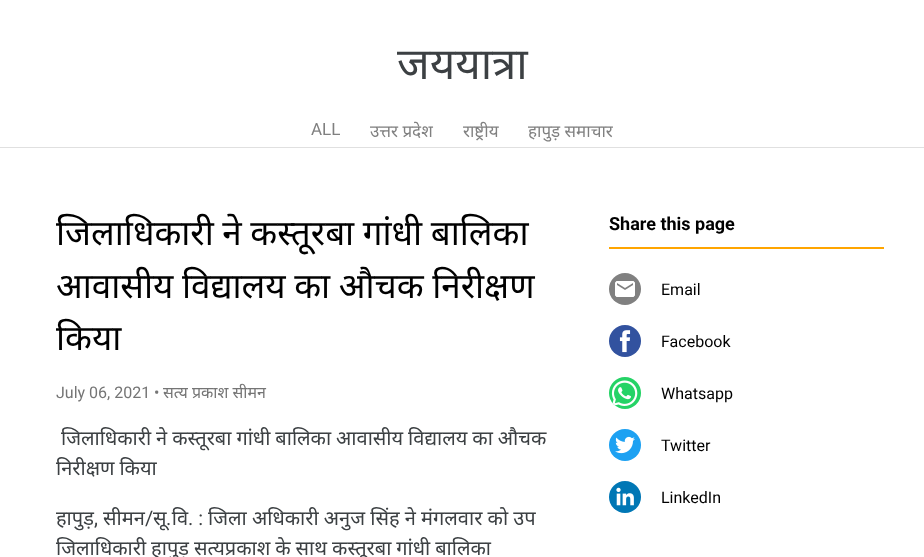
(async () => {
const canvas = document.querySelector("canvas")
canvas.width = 924
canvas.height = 557
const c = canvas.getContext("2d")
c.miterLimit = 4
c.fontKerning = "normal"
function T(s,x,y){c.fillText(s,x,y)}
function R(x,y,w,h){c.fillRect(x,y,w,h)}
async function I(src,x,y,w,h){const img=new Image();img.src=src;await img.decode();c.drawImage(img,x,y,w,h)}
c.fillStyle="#fff"
R(0,0,924,557)
c.fillStyle="#e0e0e0"
R(0,147,924,1)
c.font="44px Noto Sans"
c.fillStyle="#3c4043"
T("जययात्रा",397,79)
c.font="17px Roboto"
c.fillStyle="#808080"
T("ALL",311,135)
c.font="17px Noto Sans"
T("उत्तर प्रदेश",370,137)
T("राष्ट्रीय",463,137)
T("हापुड़ समाचार",528,137)
c.wordSpacing="-0.5px"
c.font="35px Noto Sans"
c.fillStyle="#000"
T("जिलाधिकारी ने कस्तूरबा गांधी बालिका",56,245)
T("आवासीय विद्यालय का औचक निरीक्षण",56,298)
c.wordSpacing="0px"
T("किया",56,350)
c.font="16px Roboto"
c.fillStyle="#757575"
T("July 06, 2021 •",56,398)
c.font="16px Noto Sans"
T("सत्य प्रकाश सीमन",163,398)
c.wordSpacing="-0.25px"
c.font="20px Noto Sans"
c.fillStyle="#3c4043"
T("जिलाधिकारी ने कस्तूरबा गांधी बालिका आवासीय विद्यालय का औचक",61,445)
T("निरीक्षण किया",56,475)
c.wordSpacing="0px"
T("सीमन",103,525)
c.font="20px Roboto"
T("/",145,525)
c.font="20px Noto Sans"
T("सू वि",153,525)
T("जिला अधिकारी अनुज सिंह ने मंगलवार को उप",208,525)
T("हापुड़",56,525)
c.font="20px Roboto"
T(",",94,525)
T(".",166,525)
T(". :",188,525)
c.wordSpacing="-0.25px"
c.font="20px Noto Sans"
T("जिलाधिकारी हापुड़ सत्यप्रकाश के साथ कस्तूरबा गांधी बालिका",56,555)
c.fillStyle="#ffa500"
R(609,247,275,2)
c.wordSpacing="0px"
c.font="bold 18px Roboto"
c.fillStyle="#000"
T("Share this page",609,230)
c.fillStyle="#808080"
c.beginPath()
c.arc(625,289,16,0,7)
c.fill()
await I("1.png",615,281,20,16)
c.font="16px Roboto"
c.fillStyle="#000"
T("Email",661,295)
c.fillStyle="#32529f"
c.beginPath()
c.arc(625,341,16,0,7)
c.fill()
await I("2.png",619,330,12,23)
c.fillStyle="#000"
T("Facebook",661,347)
c.fillStyle="#25d366"
c.beginPath()
c.arc(625,393,16,0,7)
c.fill()
await I("3.png",611,380,27,26)
c.fillStyle="#000"
T("Whatsapp",661,399)
c.fillStyle="#1da1f2"
c.beginPath()
c.arc(625,445,16,0,7)
c.fill()
await I("4.png",615,436,20,18)
c.fillStyle="#000"
T("Twitter",661,451)
c.fillStyle="#0077b5"
c.beginPath()
c.arc(625,497,16,0,7)
c.fill()
await I("5.png",616,487,18,19)
c.fillStyle="#000"
T("LinkedIn",661,503)
})()
